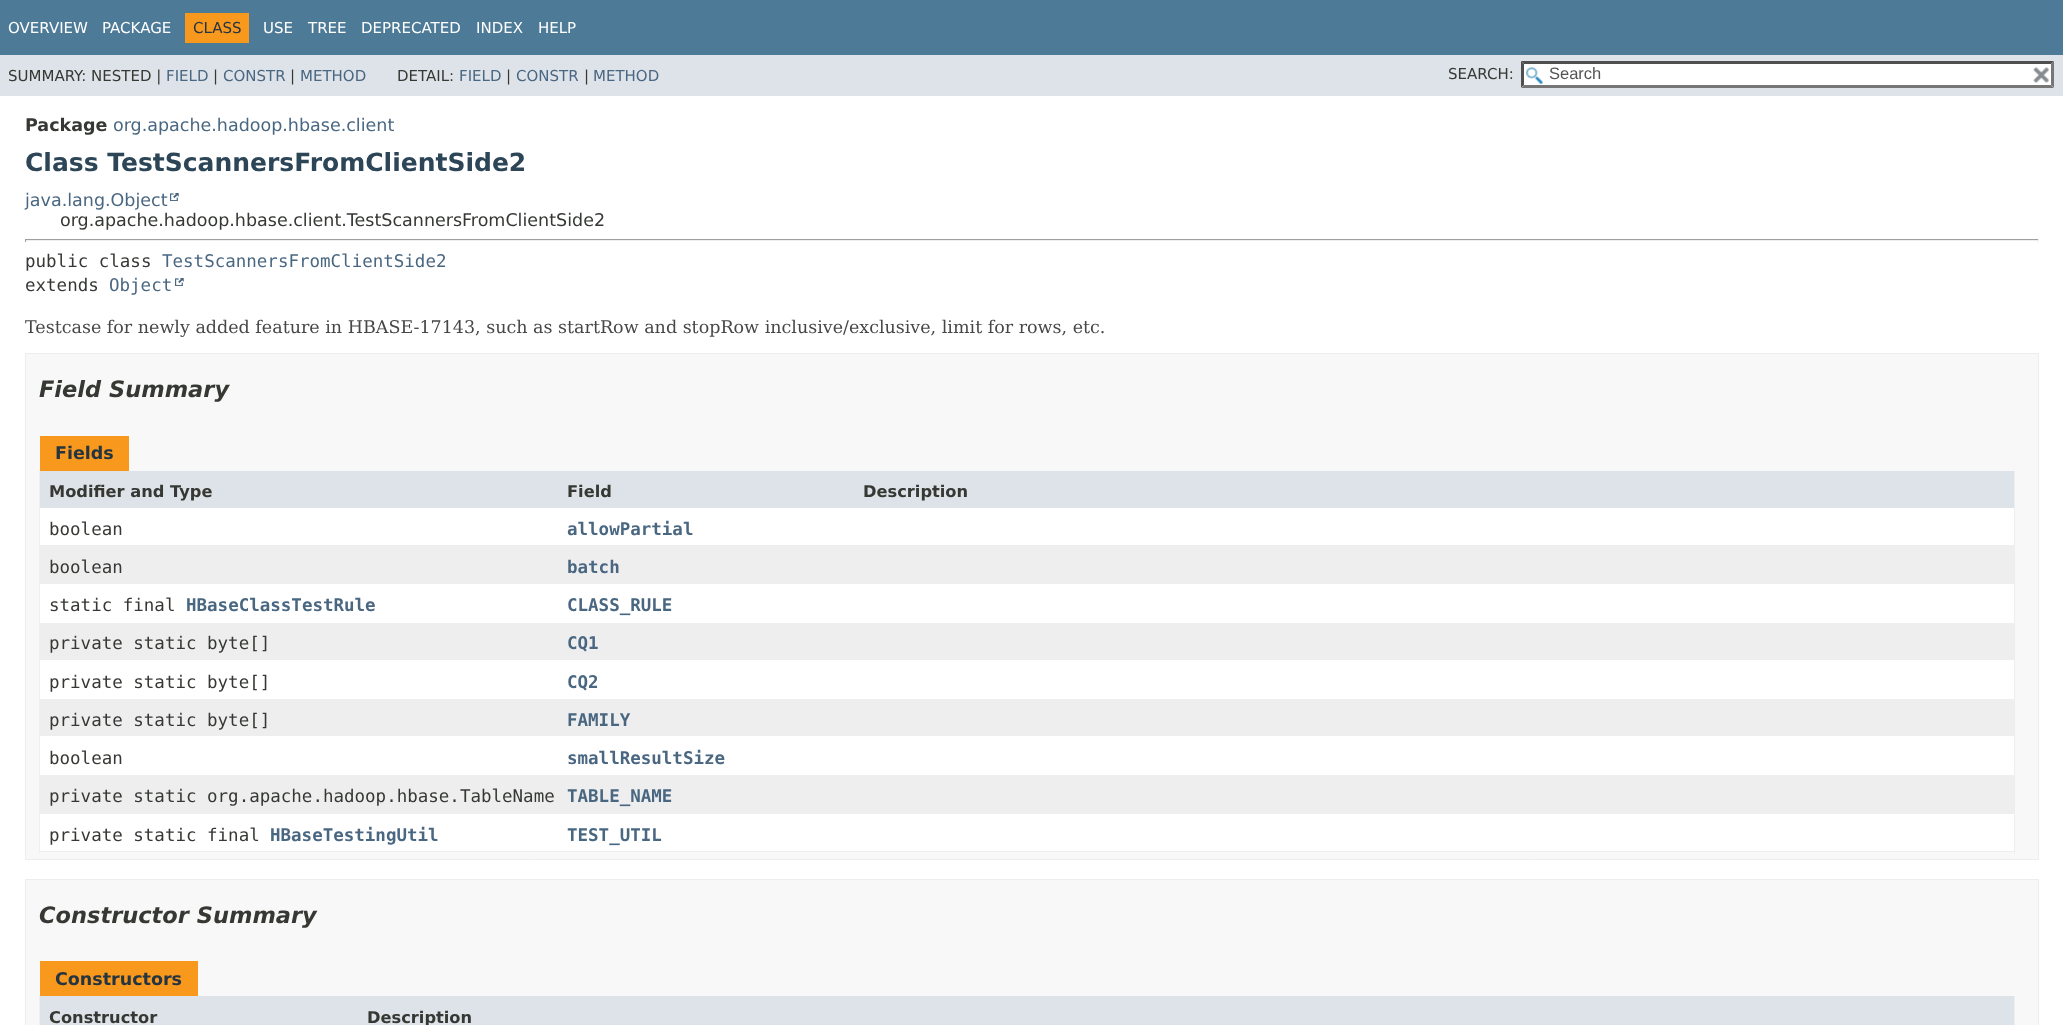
(async () => {
const canvas = document.querySelector("canvas")
canvas.width = 2063
canvas.height = 1025
const c = canvas.getContext("2d")
c.miterLimit = 4
c.fontKerning = "normal"
function T(s,x,y){c.fillText(s,x,y)}
function R(x,y,w,h){c.fillRect(x,y,w,h)}
async function I(src,x,y,w,h){const img=new Image();img.src=src;await img.decode();c.drawImage(img,x,y,w,h)}
let path
c.fillStyle="#fff"
R(0,0,2063,1025)
c.fillStyle="#4d7a97"
R(0,0,2063,55)
c.font="15px DejaVu Sans"
c.fillStyle="#fff"
T("OVERVIEW",8,33)
T("PACKAGE",102,33)
c.fillStyle="#f8981d"
R(185,13,64,30)
c.fillStyle="#253441"
T("CLASS",193,33)
c.fillStyle="#fff"
T("USE",263,33)
T("TREE",308,33)
T("DEPRECATED",361,33)
T("INDEX",476,33)
T("HELP",538,33)
c.fillStyle="#dee3e9"
R(0,55,2063,41)
c.fillStyle="#353833"
T("SUMMARY: NESTED |",8,81)
c.fillStyle="#4a6782"
T("FIELD",166,81)
c.fillStyle="#353833"
T("|",213,81)
c.fillStyle="#4a6782"
T("CONSTR",223,81)
c.fillStyle="#353833"
T("|",290,81)
c.fillStyle="#4a6782"
T("METHOD",300,81)
c.fillStyle="#353833"
T("DETAIL:",397,81)
c.fillStyle="#4a6782"
T("FIELD",459,81)
c.fillStyle="#353833"
T("|",506,81)
c.fillStyle="#4a6782"
T("CONSTR",516,81)
c.fillStyle="#353833"
T("|",584,81)
c.fillStyle="#4a6782"
T("METHOD",593,81)
c.fillStyle="#353833"
T("SEARCH:",1448,79)
c.fillStyle="#fff"
R(1521,61,533,27)
await I("1.png",1526,67,17,17)
c.fillStyle="#4f4f4f"
path = new Path2D("M1521 61h533l-3 3h-527z")
c.fill(path)
c.fillStyle="#767676"
path = new Path2D("M2054 61v26.5l-3-2.5v-21z")
c.fill(path)
path = new Path2D("M2054 88h-533l3-3h527z")
c.fill(path)
c.fillStyle="#4f4f4f"
path = new Path2D("M1521 87.5v-26.5l3 3v21z")
c.fill(path)
c.font="16.5px Liberation Sans"
c.fillStyle="#545454"
T("Search",1549,79)
await I("2.png",2033,67,16,16)
c.font="bold 17.5px DejaVu Sans"
c.fillStyle="#353833"
T("Package",25,131)
c.font="17.5px DejaVu Sans"
c.fillStyle="#4a6782"
T("org.apache.hadoop.hbase.client",113,131)
c.font="bold 25px DejaVu Sans"
c.fillStyle="#2c4557"
T("Class TestScannersFromClientSide2",25,171)
c.font="17.5px DejaVu Sans"
c.fillStyle="#4a6782"
T("java.lang.Object",25,206)
await I("3.png",170,193,9,8)
c.fillStyle="#353833"
T("org.apache.hadoop.hbase.client.TestScannersFromClientSide2",60,226)
c.fillStyle="#9f9f9f"
R(25,239,2014,1)
c.fillStyle="#eee"
R(2038,239,1,3)
R(25,240,2014,1)
c.fillStyle="#9f9f9f"
R(25,239,1,3)
c.font="17.5px DejaVu Sans Mono"
c.fillStyle="#353833"
T("public class",25,267)
c.fillStyle="#4a6782"
T("TestScannersFromClientSide2",162,267)
c.fillStyle="#353833"
T("extends",25,291)
c.fillStyle="#4a6782"
T("Object",109,291)
await I("3.png",175,278,9,8)
c.font="17.5px DejaVu Serif"
c.fillStyle="#474747"
T("Testcase for newly added feature in HBASE-17143, such as startRow and stopRow inclusive/exclusive, limit for rows, etc.",25,333)
c.fillStyle="#f8f8f8"
c.beginPath()
c.rect(25.5,353.5,2013,506)
c.fill()
c.strokeStyle="#ededed"
c.stroke()
c.font="italic bold 22.5px DejaVu Sans"
c.fillStyle="#353833"
T("Field Summary",39,397)
c.fillStyle="#f8981d"
R(40,436,89,35)
c.font="bold 17.5px DejaVu Sans"
c.fillStyle="#253441"
T("Fields",55,459)
c.fillStyle="#eee"
R(2014,471,1,382)
R(39,851,1976,1)
R(39,471,1,382)
c.fillStyle="#dee3e9"
R(40,471,814,37)
c.font="bold 16.25px DejaVu Sans"
c.fillStyle="#353833"
T("Modifier and Type",49,497)
T("Field",567,497)
c.fillStyle="#dee3e9"
R(854,471,1160,37)
c.fillStyle="#353833"
T("Description",863,497)
c.fillStyle="#fff"
R(40,508,814,37)
c.font="17.5px DejaVu Sans Mono"
c.fillStyle="#353833"
T("boolean",49,535)
c.font="bold 17.5px DejaVu Sans Mono"
c.fillStyle="#4a6782"
T("allowPartial",567,535)
c.fillStyle="#fff"
R(854,508,1160,37)
c.fillStyle="#eeeeef"
R(40,545,814,39)
c.font="17.5px DejaVu Sans Mono"
c.fillStyle="#353833"
T("boolean",49,573)
c.font="bold 17.5px DejaVu Sans Mono"
c.fillStyle="#4a6782"
T("batch",567,573)
c.fillStyle="#eeeeef"
R(854,545,1160,39)
c.fillStyle="#fff"
R(40,584,814,39)
c.font="17.5px DejaVu Sans Mono"
c.fillStyle="#353833"
T("static final",49,611)
c.font="bold 17.5px DejaVu Sans Mono"
c.fillStyle="#4a6782"
T("HBaseClassTestRule",186,611)
T("CLASS_RULE",567,611)
c.fillStyle="#fff"
R(854,584,1160,39)
c.fillStyle="#eeeeef"
R(40,623,814,37)
c.font="17.5px DejaVu Sans Mono"
c.fillStyle="#353833"
T("private static byte[]",49,649)
c.font="bold 17.5px DejaVu Sans Mono"
c.fillStyle="#4a6782"
T("CQ1",567,649)
c.fillStyle="#eeeeef"
R(854,623,1160,37)
c.fillStyle="#fff"
R(40,660,814,39)
c.font="17.5px DejaVu Sans Mono"
c.fillStyle="#353833"
T("private static byte[]",49,688)
c.font="bold 17.5px DejaVu Sans Mono"
c.fillStyle="#4a6782"
T("CQ2",567,688)
c.fillStyle="#fff"
R(854,660,1160,39)
c.fillStyle="#eeeeef"
R(40,699,814,37)
c.font="17.5px DejaVu Sans Mono"
c.fillStyle="#353833"
T("private static byte[]",49,726)
c.font="bold 17.5px DejaVu Sans Mono"
c.fillStyle="#4a6782"
T("FAMILY",567,726)
c.fillStyle="#eeeeef"
R(854,699,1160,37)
c.fillStyle="#fff"
R(40,736,814,39)
c.font="17.5px DejaVu Sans Mono"
c.fillStyle="#353833"
T("boolean",49,764)
c.font="bold 17.5px DejaVu Sans Mono"
c.fillStyle="#4a6782"
T("smallResultSize",567,764)
c.fillStyle="#fff"
R(854,736,1160,39)
c.fillStyle="#eeeeef"
R(40,775,814,39)
c.font="17.5px DejaVu Sans Mono"
c.fillStyle="#353833"
T("private static org.apache.hadoop.hbase.TableName",49,802)
c.font="bold 17.5px DejaVu Sans Mono"
c.fillStyle="#4a6782"
T("TABLE_NAME",567,802)
c.fillStyle="#eeeeef"
R(854,775,1160,39)
c.fillStyle="#fff"
R(40,814,814,37)
c.font="17.5px DejaVu Sans Mono"
c.fillStyle="#353833"
T("private static final",49,841)
c.font="bold 17.5px DejaVu Sans Mono"
c.fillStyle="#4a6782"
T("HBaseTestingUtil",270,841)
T("TEST_UTIL",567,841)
c.fillStyle="#fff"
R(854,814,1160,37)
c.fillStyle="#f8f8f8"
c.beginPath()
c.rect(25.5,879.5,2013,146)
c.fill()
c.stroke()
c.font="italic bold 22.5px DejaVu Sans"
c.fillStyle="#353833"
T("Constructor Summary",39,923)
c.fillStyle="#f8981d"
R(40,961,158,35)
c.font="bold 17.5px DejaVu Sans"
c.fillStyle="#253441"
T("Constructors",55,985)
c.fillStyle="#eee"
R(2014,996,1,29)
R(39,996,1,29)
c.fillStyle="#dee3e9"
R(40,996,1974,29)
c.font="bold 16.25px DejaVu Sans"
c.fillStyle="#353833"
T("Constructor",49,1023)
T("Description",367,1023)
})()
